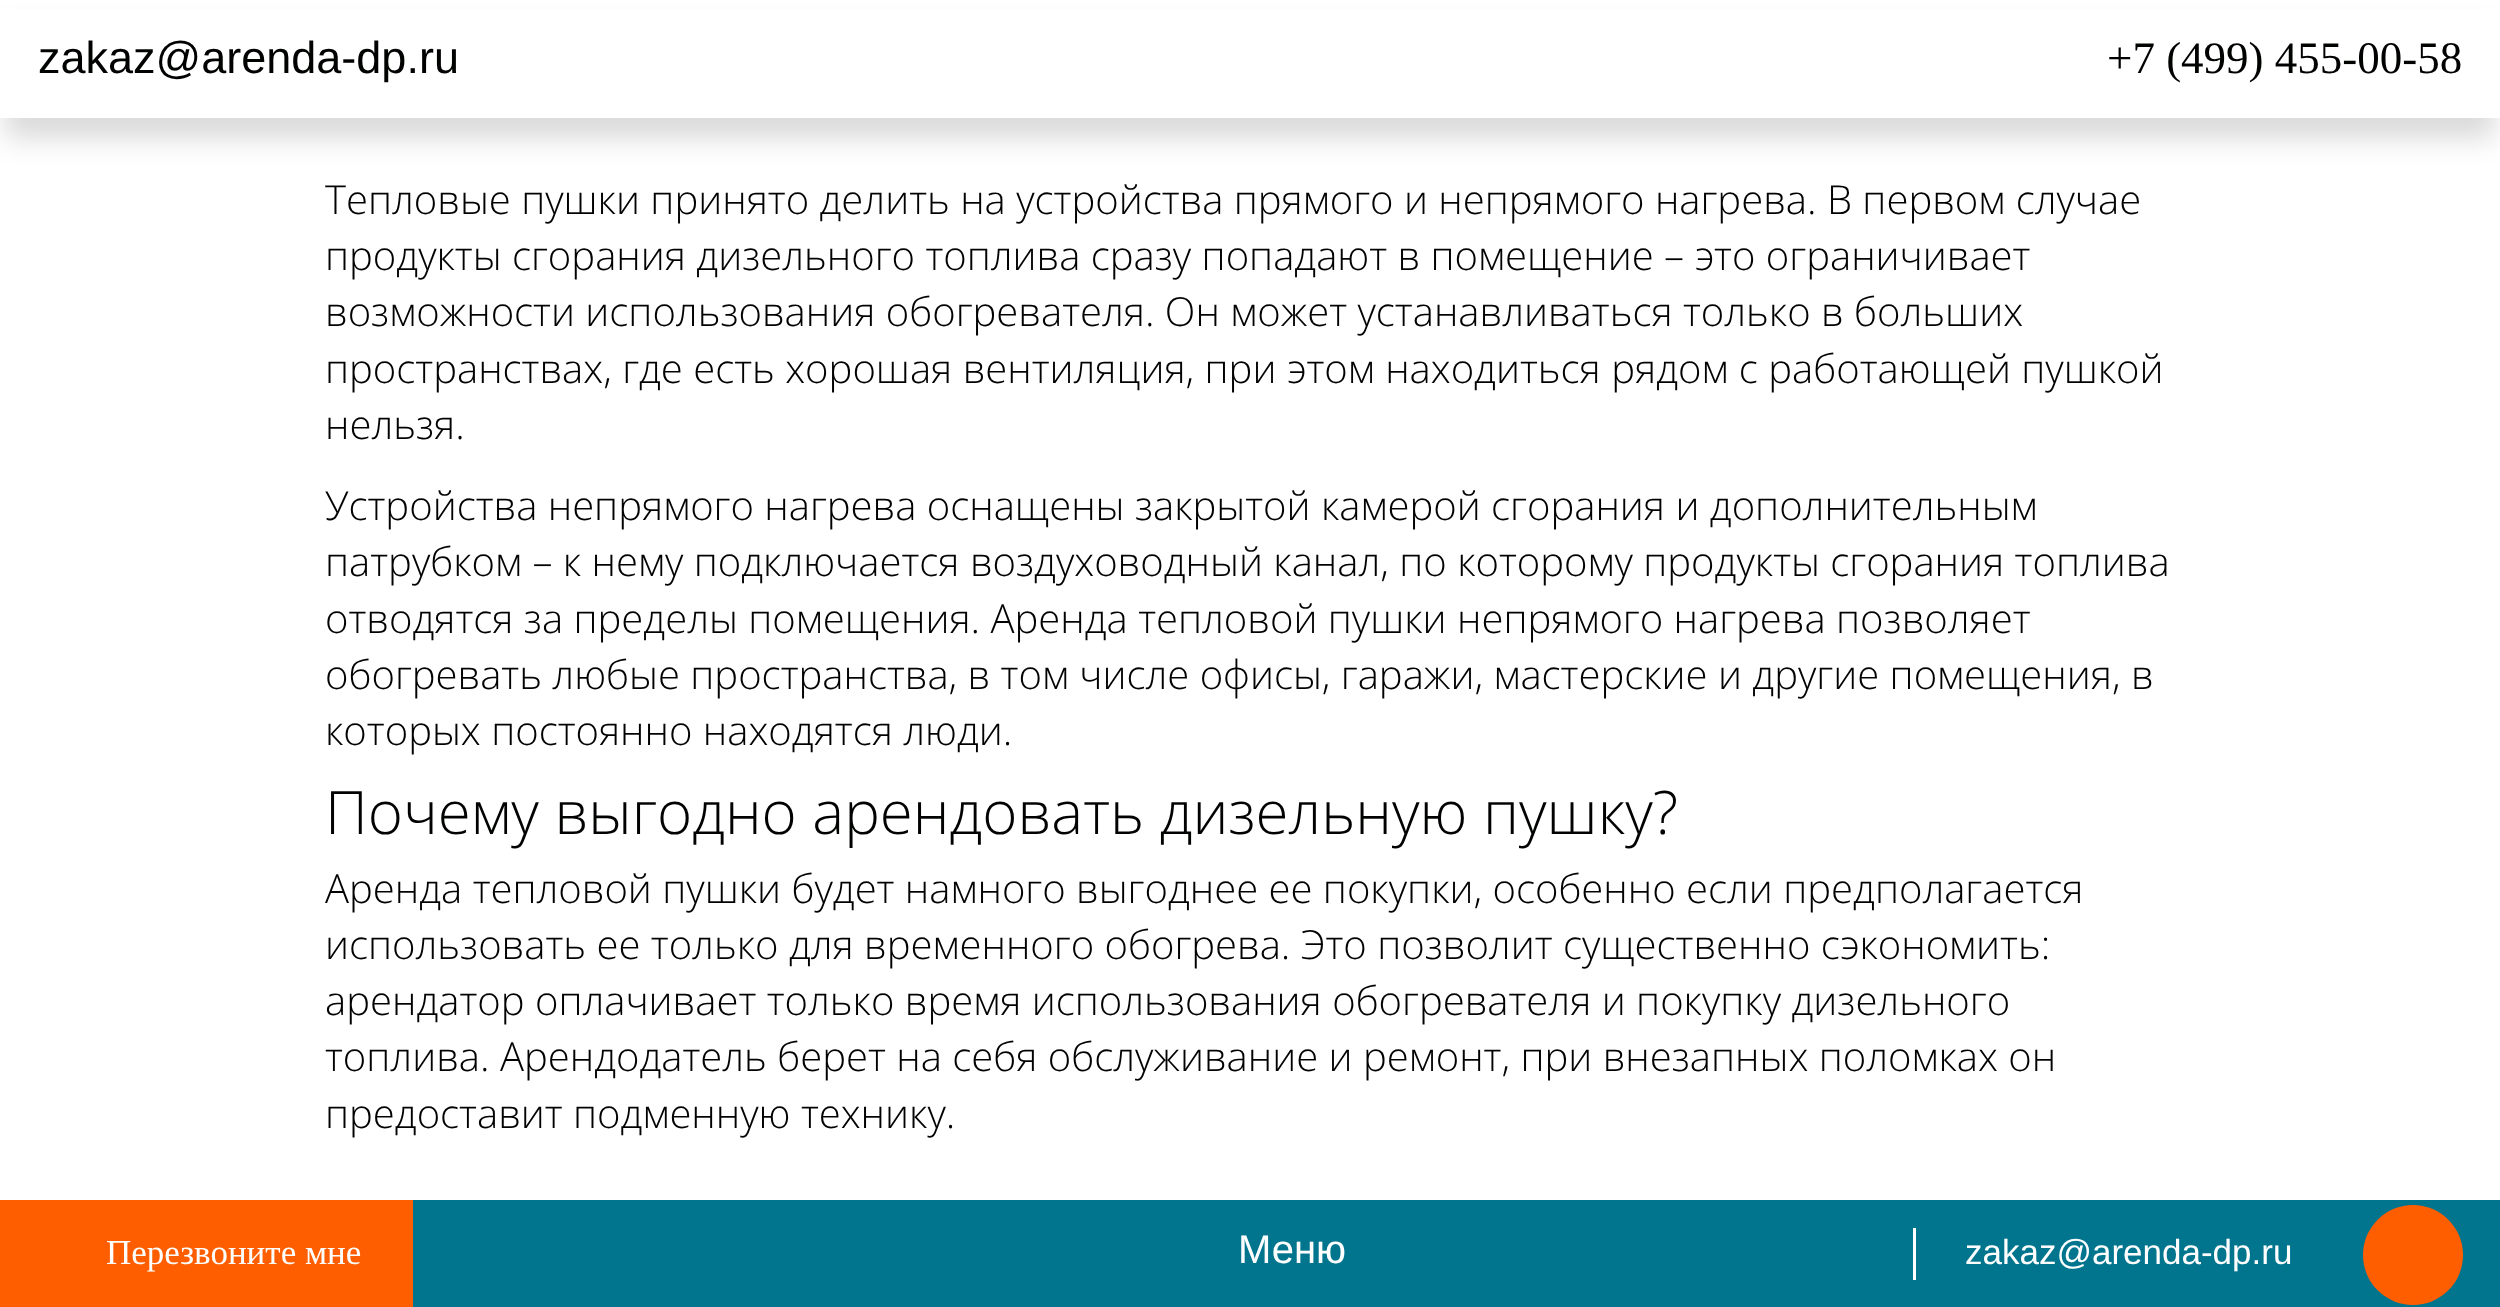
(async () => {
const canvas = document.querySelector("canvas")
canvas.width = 2500
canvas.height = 1307
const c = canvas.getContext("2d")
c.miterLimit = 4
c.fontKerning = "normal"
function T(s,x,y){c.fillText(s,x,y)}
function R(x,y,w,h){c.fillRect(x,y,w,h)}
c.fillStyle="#fff"
R(0,0,2500,1307)
c.fillStyle="#00000026"
c.filter="blur(14px)"
c.beginPath()
c.rect(5,30,2490,108)
c.fill()
c.filter="none"
c.fillStyle="#fff"
R(0,9,2500,109)
c.font="45px Liberation Sans"
c.fillStyle="#000200"
T("zakaz@arenda-dp.ru",38,73)
c.font="45px Liberation Serif"
T("+7 (499) 455-00-58",2107,73)
c.font="300 40px Open Sans"
T("Тепловые пушки принято делить на устройства прямого и непрямого нагрева. В первом случае",325,214)
T("продукты сгорания дизельного топлива сразу попадают в помещение – это ограничивает",325,270)
T("возможности использования обогревателя. Он может устанавливаться только в больших",325,326)
T("пространствах, где есть хорошая вентиляция, при этом находиться рядом с работающей пушкой",325,383)
T("нельзя.",325,439)
T("Устройства непрямого нагрева оснащены закрытой камерой сгорания и дополнительным",325,520)
T("патрубком – к нему подключается воздуховодный канал, по которому продукты сгорания топлива",325,576)
T("отводятся за пределы помещения. Аренда тепловой пушки непрямого нагрева позволяет",325,633)
T("обогревать любые пространства, в том числе офисы, гаражи, мастерские и другие помещения, в",325,689)
T("которых постоянно находятся люди.",325,745)
c.font="300 60px Open Sans"
T("Почему выгодно арендовать дизельную пушку?",325,834)
c.font="300 40px Open Sans"
T("Аренда тепловой пушки будет намного выгоднее ее покупки, особенно если предполагается",325,903)
T("использовать ее только для временного обогрева. Это позволит существенно сэкономить:",325,959)
T("арендатор оплачивает только время использования обогревателя и покупку дизельного",325,1015)
T("топлива. Арендодатель берет на себя обслуживание и ремонт, при внезапных поломках он",325,1071)
T("предоставит подменную технику.",325,1128)
c.fillStyle="#01748e"
R(413,1200,2087,107)
c.fillStyle="#ff5e00"
R(0,1200,413,107)
c.font="35px Liberation Serif"
c.fillStyle="#fff"
T("Перезвоните мне",106,1264)
c.font="40px Liberation Sans"
T("Меню",1238,1263)
R(1913,1228,3,52)
c.font="35px Liberation Sans"
T("zakaz@arenda-dp.ru",1965,1264)
c.fillStyle="#ff5e00"
c.beginPath()
c.arc(2413,1255,50,0,7)
c.fill()
})()
